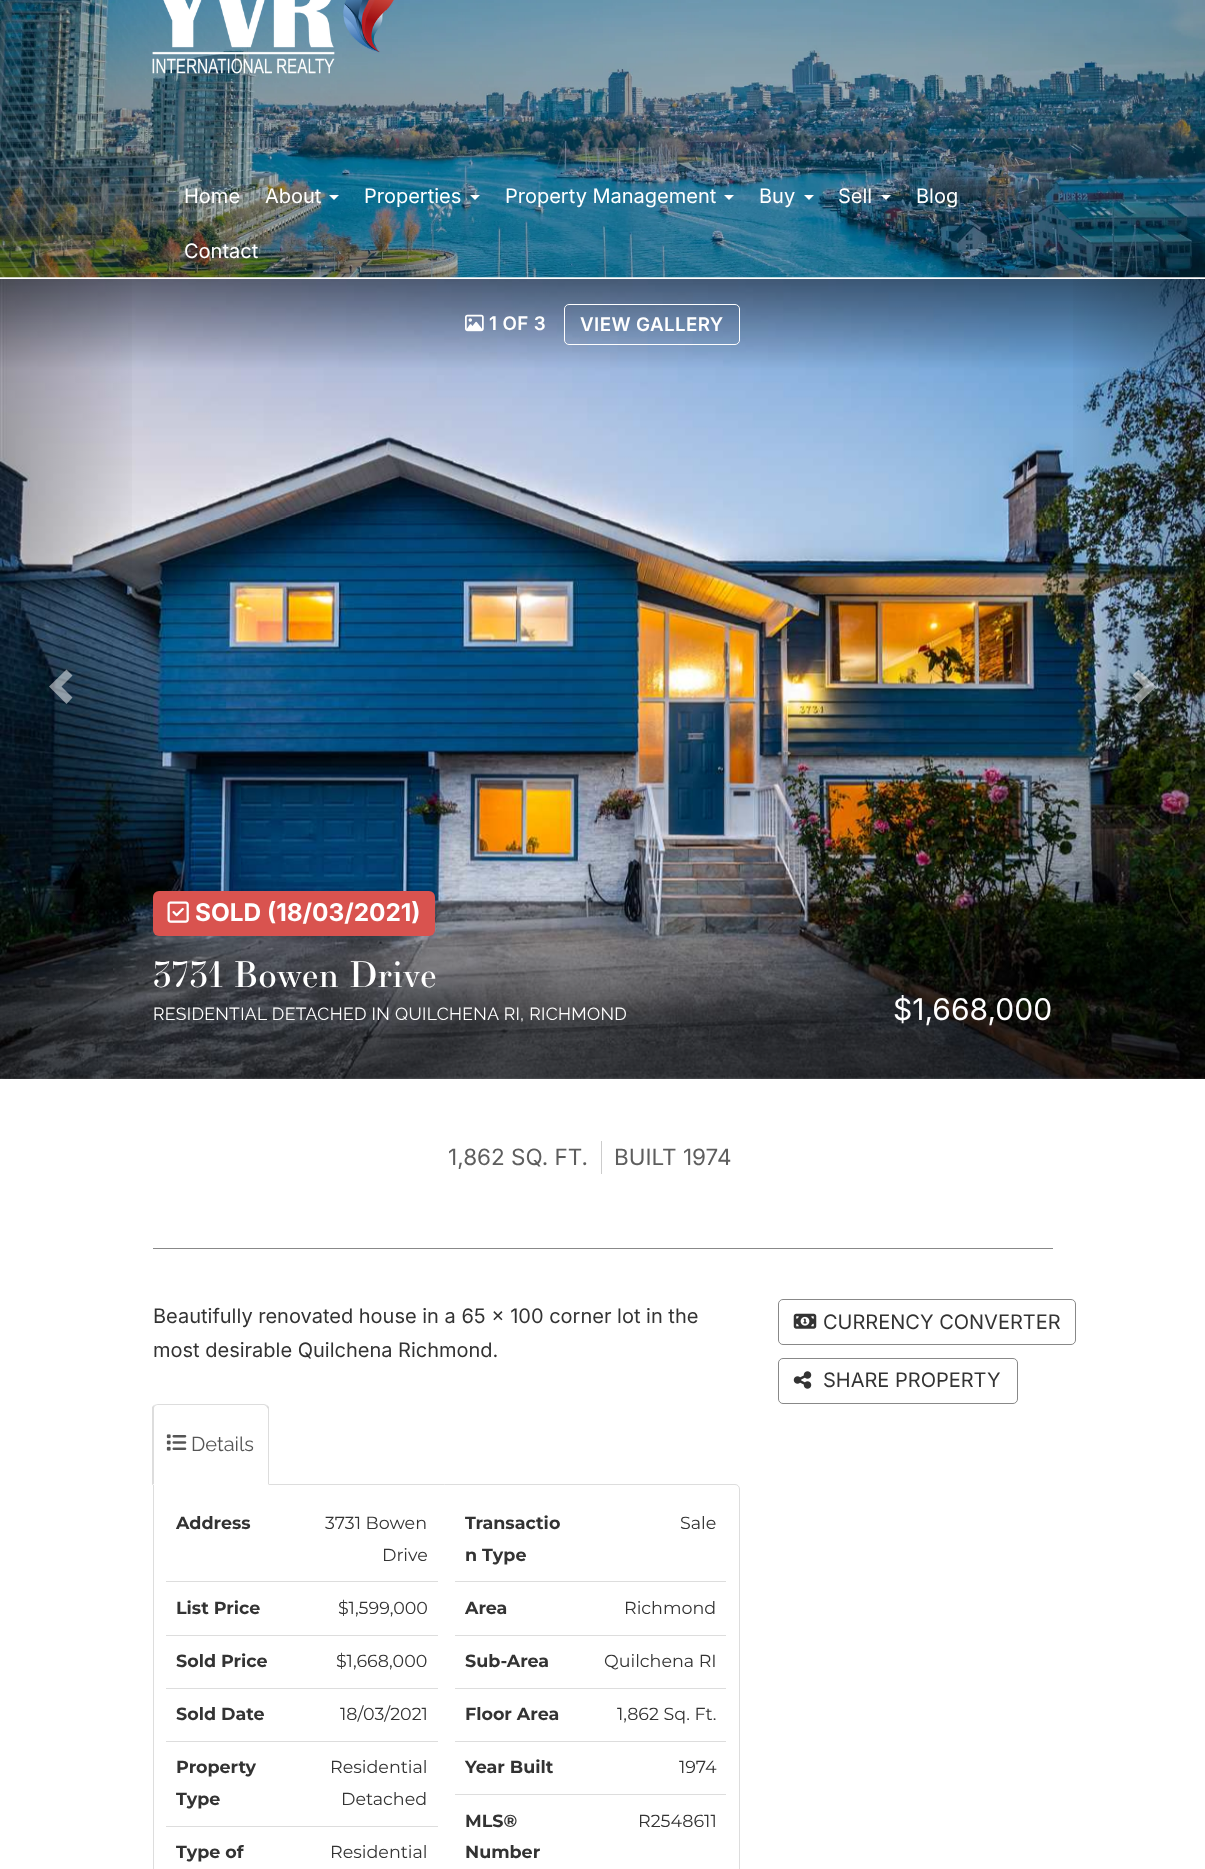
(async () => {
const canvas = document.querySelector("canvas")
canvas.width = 1205
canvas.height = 1869
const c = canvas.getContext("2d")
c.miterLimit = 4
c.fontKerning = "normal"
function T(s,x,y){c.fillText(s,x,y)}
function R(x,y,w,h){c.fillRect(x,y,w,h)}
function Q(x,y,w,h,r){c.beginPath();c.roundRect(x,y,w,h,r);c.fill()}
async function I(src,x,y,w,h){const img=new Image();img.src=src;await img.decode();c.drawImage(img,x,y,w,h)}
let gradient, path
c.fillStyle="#fff"
R(0,0,1205,1869)
await I("1.png",0,0,1205,278)
await I("2.png",152,0,242,74)
c.font="20px Inter"
T("Home",184,203)
T("About",265,203)
path = new Path2D("M329 195h10l-5 5z")
c.fill(path)
T("Properties",364,203)
path = new Path2D("M470 195h10l-5 5z")
c.fill(path)
T("Property Management",505,203)
path = new Path2D("M724 195h10l-5 5z")
c.fill(path)
T("Buy",759,203)
path = new Path2D("M804 195h10l-5 5z")
c.fill(path)
T("Sell",838,203)
path = new Path2D("M881 195h10l-5 5z")
c.fill(path)
T("Blog",916,203)
T("Contact",184,258)
await I("3.png",0,279,1205,800)
gradient = c.createLinearGradient(0,679,145,679)
gradient.addColorStop(0,"#00000040")
gradient.addColorStop(1,"#00000000")
c.fillStyle = gradient
R(0,279,132,800)
c.fillStyle="#ffffff80"
path = new Path2D("M72.5 675.5l-11 11l11 11l-6 6.5l-17.5-17.5l17.5-17z")
c.fill(path)
await I("4.png",465,314,19,18)
c.letterSpacing="0.4px"
c.font="600 18.75px Inter"
c.fillStyle="#fff"
T("1 OF 3",489,330)
c.beginPath()
c.roundRect(564.5,304.5,175,40,4.5)
c.strokeStyle="#fff"
c.stroke()
T("VIEW GALLERY",580,331)
gradient = c.createLinearGradient(1060,679,1205,679)
gradient.addColorStop(0,"#00000000")
gradient.addColorStop(1,"#00000040")
c.fillStyle = gradient
R(1073,279,132,800)
c.fillStyle="#ffffff80"
path = new Path2D("M1156 686.5l-17.5 17.5l-6-6.5l11-11l-11-11l6-6z")
c.fill(path)
gradient = c.createLinearGradient(603,891,603,1079)
gradient.addColorStop(0,"#00000000")
gradient.addColorStop(.6,"#00000073")
c.fillStyle = gradient
R(0,896,1205,183)
c.fillStyle="#d9534f"
Q(153,891,282,45,6)
await I("5.png",167,901,22,22)
c.letterSpacing="0px"
c.font="bold 24.4px Inter"
c.fillStyle="#fff"
T("SOLD (18/03/2021)",195,921)
c.letterSpacing="0.75px"
c.font="35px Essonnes"
T("3731 Bowen Drive",153,987)
c.letterSpacing="0.35px"
c.font="17.5px Raleway"
T("RESIDENTIAL DETACHED IN QUILCHENA RI, RICHMOND",153,1020)
c.letterSpacing="0px"
c.font="30px Inter"
T("$1,668,000",893,1020)
c.fillStyle="#888"
R(153,1248,900,1)
c.fillStyle="#ccc"
R(601,1141,1,33)
c.font="22.5px Inter"
c.fillStyle="#5e5e5e"
T("1,862 SQ. FT.",448,1165)
T("BUILT 1974",614,1165)
c.font="20px Inter"
c.fillStyle="#333"
T("Beautifully renovated house in a 65 x 100 corner lot in the",153,1323)
T("most desirable Quilchena Richmond.",153,1357)
path = new Path2D("M153.5 1484.5h581.5c2.5 0 4.5 2 4.5 4.5v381c0 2.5-2 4.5-4.5 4.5h-577c-2.5 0-4.5-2-4.5-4.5z")
c.strokeStyle="#ddd"
c.stroke(path)
c.fillStyle="#fff"
c.beginPath()
c.roundRect(153,1404,116,81,[5,5,0,0])
c.fill()
c.fillStyle="#ddd"
path = new Path2D("M158 1404l-4 1l1 1c1-1 2-1 3-1h106l2 1l1-1l-3-1z")
c.fill(path)
path = new Path2D("M267 1405l2 2v78l-1-1v-75l-2-3z")
c.fill(path)
path = new Path2D("M152 1485l2-1v-75c0-1 0-2 1-3l-1-1l-2 2z")
c.fill(path)
await I("6.png",166,1434,21,17)
c.font="20px Raleway"
c.fillStyle="#555"
T("Details",191,1451)
c.fillStyle="#ddd"
R(166,1581,272,1)
c.font="bold 17.5px Montserrat"
c.fillStyle="#333"
T("Address",176,1529)
c.font="17.5px Montserrat"
T("3731 Bowen",325,1529)
T("Drive",382,1561)
c.fillStyle="#ddd"
R(455,1581,271,1)
c.font="bold 17.5px Montserrat"
c.fillStyle="#333"
T("Transactio",465,1529)
T("n Type",465,1561)
c.font="17.5px Montserrat"
T("Sale",680,1529)
c.fillStyle="#ddd"
R(166,1635,272,1)
c.font="bold 17.5px Montserrat"
c.fillStyle="#333"
T("List Price",176,1614)
c.font="17.5px Montserrat"
T("$1,599,000",338,1614)
c.fillStyle="#ddd"
R(455,1635,271,1)
c.font="bold 17.5px Montserrat"
c.fillStyle="#333"
T("Area",465,1614)
c.font="17.5px Montserrat"
T("Richmond",624,1614)
c.fillStyle="#ddd"
R(166,1688,272,1)
c.font="bold 17.5px Montserrat"
c.fillStyle="#333"
T("Sold Price",176,1667)
c.font="17.5px Montserrat"
T("$1,668,000",336,1667)
c.fillStyle="#ddd"
R(455,1688,271,1)
c.font="bold 17.5px Montserrat"
c.fillStyle="#333"
T("Sub-Area",465,1667)
c.font="17.5px Montserrat"
T("Quilchena RI",604,1667)
c.fillStyle="#ddd"
R(166,1741,272,1)
c.font="bold 17.5px Montserrat"
c.fillStyle="#333"
T("Sold Date",176,1720)
c.font="17.5px Montserrat"
T("18/03/2021",340,1720)
c.fillStyle="#ddd"
R(455,1741,271,1)
c.font="bold 17.5px Montserrat"
c.fillStyle="#333"
T("Floor Area",465,1720)
c.font="17.5px Montserrat"
T("1,862 Sq. Ft.",617,1720)
c.fillStyle="#ddd"
R(166,1826,272,1)
c.font="bold 17.5px Montserrat"
c.fillStyle="#333"
T("Property",176,1773)
T("Type",176,1805)
c.font="17.5px Montserrat"
T("Residential",330,1773)
T("Detached",341,1805)
c.fillStyle="#ddd"
R(455,1794,271,1)
c.font="bold 17.5px Montserrat"
c.fillStyle="#333"
T("Year Built",465,1773)
c.font="17.5px Montserrat"
T("1974",679,1773)
c.font="bold 17.5px Montserrat"
T("Type of",176,1858)
c.font="17.5px Montserrat"
T("Residential",330,1858)
c.font="bold 17.5px Montserrat"
T("MLS®",465,1827)
T("Number",465,1858)
c.font="17.5px Montserrat"
T("R2548611",638,1827)
c.beginPath()
c.roundRect(778.5,1299.5,297,45,4.5)
c.strokeStyle="#888"
c.stroke()
await I("7.png",793,1313,24,16)
c.font="20px Inter"
T("CURRENCY CONVERTER",823,1329)
c.beginPath()
c.roundRect(778.5,1358.5,239,45,4.5)
c.stroke()
await I("8.png",793,1371,19,18)
T("SHARE PROPERTY",823,1387)
})()
